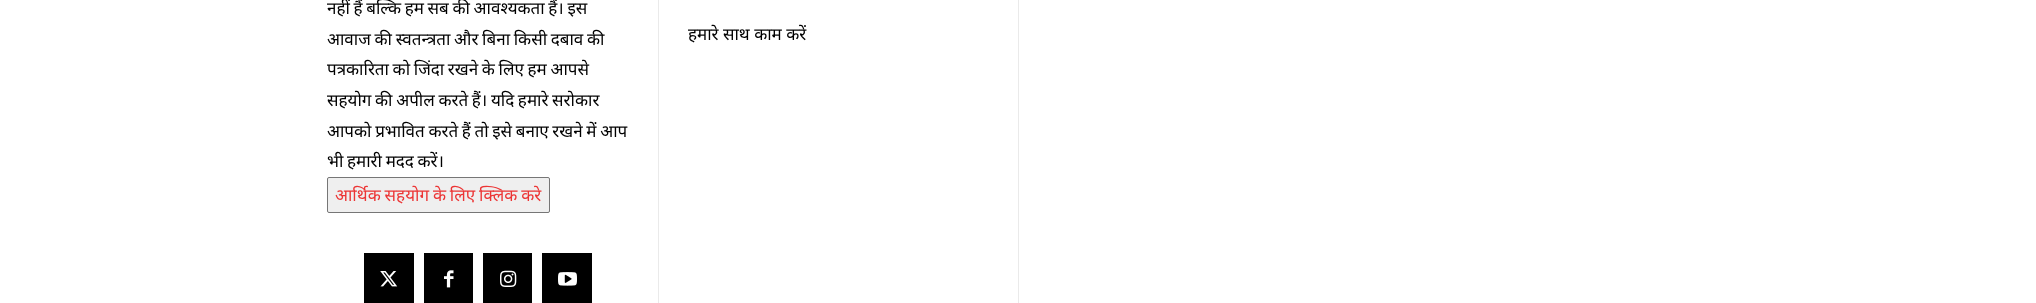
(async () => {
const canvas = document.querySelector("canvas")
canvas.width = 2036
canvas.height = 303
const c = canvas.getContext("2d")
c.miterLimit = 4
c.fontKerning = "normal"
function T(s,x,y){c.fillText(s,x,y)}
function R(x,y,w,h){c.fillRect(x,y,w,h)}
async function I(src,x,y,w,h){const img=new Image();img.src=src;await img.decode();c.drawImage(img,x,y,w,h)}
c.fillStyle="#fff"
R(0,0,2036,303)
c.wordSpacing="-0.75px"
c.font="17px Noto Sans"
c.fillStyle="#000"
T("नहीं हैं बल्कि हम सब की आवश्यकता हैं। इस",327,14)
T("आवाज की स्वतन्त्रता और बिना किसी दबाव की",327,45)
T("पत्रकारिता को जिंदा रखने के लिए हम आपसे",327,75)
T("सहयोग की अपील करते हैं। यदि हमारे सरोकार",327,106)
T("आपको प्रभावित करते हैं तो इसे बनाए रखने में आप",327,137)
T("भी हमारी मदद करें।",327,167)
c.fillStyle="#efefef"
c.beginPath()
c.roundRect(327.5,177.5,222,35,1.5)
c.fill()
c.strokeStyle="#767676"
c.stroke()
c.wordSpacing="-0.5px"
c.fillStyle="#ec3535"
T("आर्थिक सहयोग के लिए क्लिक करे",335,201)
c.fillStyle="#000"
R(364,253,50,50)
await I("1.png",380,271,18,16)
R(424,253,49,50)
await I("2.png",444,270,10,18)
R(483,253,49,50)
await I("3.png",500,270,17,17)
R(542,253,50,50)
await I("4.png",558,272,19,14)
c.fillStyle="#eaeaea"
R(658,0,1,303)
c.wordSpacing="0px"
c.fillStyle="#000"
T("हमारे साथ काम करें",688,40)
c.fillStyle="#eaeaea"
R(1018,0,1,303)
})()
